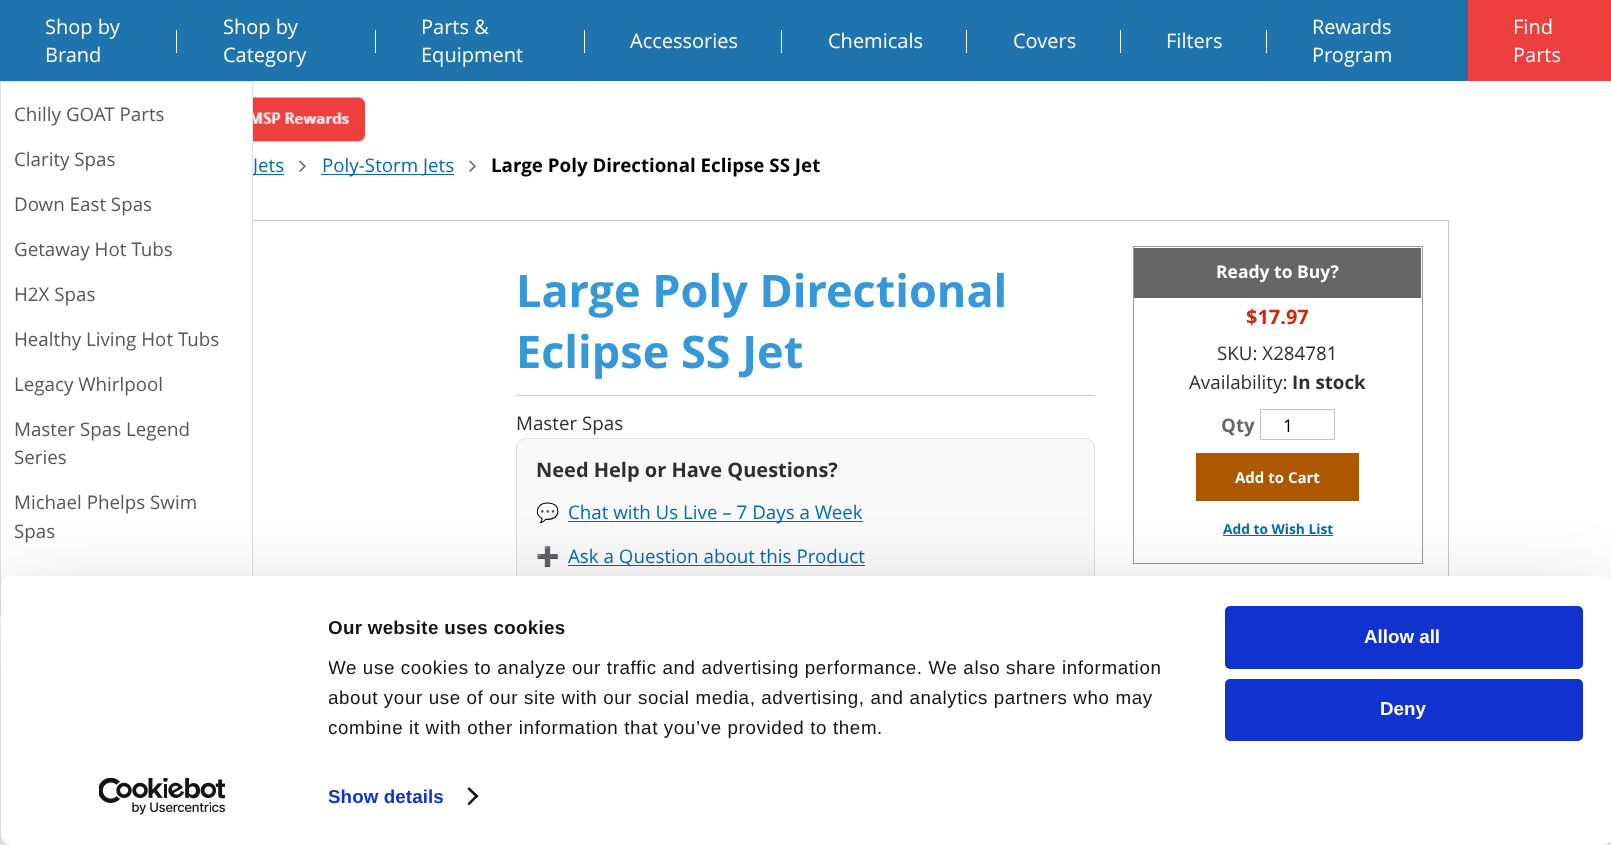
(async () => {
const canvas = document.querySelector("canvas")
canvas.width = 1611
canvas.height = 845
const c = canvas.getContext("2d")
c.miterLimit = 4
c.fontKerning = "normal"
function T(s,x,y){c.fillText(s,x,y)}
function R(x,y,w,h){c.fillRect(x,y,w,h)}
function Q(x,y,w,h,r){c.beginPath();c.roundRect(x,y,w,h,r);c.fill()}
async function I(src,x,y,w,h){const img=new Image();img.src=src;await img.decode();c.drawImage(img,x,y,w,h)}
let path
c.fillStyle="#fff"
R(0,0,1611,845)
c.fillStyle="#1f74ad"
R(0,0,1468,81)
c.font="20px Open Sans"
c.fillStyle="#fff"
T("Shop by",45,34)
T("Brand",45,62)
R(176,30,1,23)
c.fillStyle="#006bb4"
R(254,174,30,1)
c.font="18.75px Open Sans"
T("Jets",253,172)
c.strokeStyle="#c4c6c8"
c.strokeRect(163.5,220.5,1285,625)
c.fillStyle="#fff"
R(163,174,89,412)
c.strokeStyle="#e0e0e0"
c.strokeRect(.5,81.5,252,533)
c.fillStyle="#575757"
T("Chilly GOAT Parts",14,121)
T("Clarity Spas",14,166)
T("Down East Spas",14,211)
T("Getaway Hot Tubs",14,256)
T("H2X Spas",14,301)
T("Healthy Living Hot Tubs",14,346)
T("Legacy Whirlpool",14,391)
T("Master Spas Legend",14,436)
T("Series",14,464)
T("Michael Phelps Swim",14,509)
T("Spas",14,538)
c.font="20px Open Sans"
c.fillStyle="#fff"
T("Shop by",223,34)
T("Category",223,62)
R(375,30,1,23)
T("Parts &",421,34)
T("Equipment",421,62)
R(584,30,1,23)
T("Accessories",630,48)
R(781,30,1,23)
T("Chemicals",828,48)
R(966,30,1,23)
T("Covers",1013,48)
R(1120,30,1,23)
T("Filters",1166,48)
R(1266,30,1,23)
T("Rewards",1312,34)
T("Program",1312,62)
c.fillStyle="#ee3f3f"
R(1468,0,143,81)
c.fillStyle="#fff"
T("Find",1513,34)
T("Parts",1513,62)
await I("1.png",253,97,113,45)
await I("2.png",299,160,7,12)
c.fillStyle="#006bb4"
R(321,174,133,1)
c.font="18.75px Open Sans"
T("Poly-Storm Jets",322,172)
await I("2.png",469,160,7,12)
c.font="bold 18.75px Open Sans"
c.fillStyle="#000"
T("Large Poly Directional Eclipse SS Jet",491,172)
c.fillStyle="#ccc"
R(516,395,579,1)
c.font="bold 45px Open Sans"
c.fillStyle="#3498db"
T("Large Poly Directional",516,307)
T("Eclipse SS Jet",516,368)
c.font="18.75px Open Sans"
c.fillStyle="#2f2f2f"
T("Master Spas",516,430)
c.fillStyle="#f9f9f9"
c.beginPath()
c.roundRect(516.5,438.5,578,160,9.5)
c.fill()
c.strokeStyle="#dedede"
c.stroke()
c.font="bold 20px Open Sans"
c.fillStyle="#2f2f2f"
T("Need Help or Have Questions?",536,477)
c.font="18.75px Noto Color Emoji"
T("💬",536,519)
c.fillStyle="#006bb4"
R(568,521,295,1)
c.font="18.75px Open Sans"
T("Chat with Us Live – 7 Days a Week",568,519)
c.font="18.75px Noto Color Emoji"
c.fillStyle="#2f2f2f"
T("➕",536,563)
c.fillStyle="#006bb4"
R(568,565,297,1)
c.font="18.75px Open Sans"
T("Ask a Question about this Product",568,563)
c.strokeStyle="#999"
c.strokeRect(1133.5,246.5,289,317)
c.fillStyle="#666"
R(1134,248,287,50)
c.font="bold 17.5px Open Sans"
c.fillStyle="#fff"
T("Ready to Buy?",1216,278)
c.font="bold 20px Open Sans"
c.fillStyle="#d42608"
T("$17.97",1246,324)
c.font="18.75px Open Sans"
c.fillStyle="#2f2f2f"
T("SKU: X284781",1217,360)
T("Availability:",1189,389)
c.font="bold 18.75px Open Sans"
T("In stock",1292,389)
c.fillStyle="#666"
T("Qty",1221,432)
c.beginPath()
c.roundRect(1260.5,409.5,74,30,.5)
c.strokeStyle="#c2c2c2"
c.stroke()
c.font="17.5px Open Sans"
c.fillStyle="#000"
T("1",1283,432)
c.fillStyle="#ad5700"
R(1196,453,163,48)
c.font="bold 15px Open Sans"
c.fillStyle="#fff"
T("Add to Cart",1235,483)
c.font="bold 13.75px Open Sans"
c.fillStyle="#006bb4"
T("Add to Wish List",1223,534)
R(1223,535,110,1)
c.fillStyle="#0000004d"
c.filter="blur(44px)"
c.beginPath()
c.roundRect(1,614,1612,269,10)
c.fill()
c.filter="none"
c.fillStyle="#fff"
Q(1,576,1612,269,10)
c.save()
c.beginPath()
c.rect(329,614,889,129)
c.clip()
c.letterSpacing="0.3px"
c.font="bold 18.75px Liberation Sans"
c.fillStyle="#141414"
T("Our website uses cookies",328,634)
c.letterSpacing="0.62px"
c.font="18.75px Liberation Sans"
T("We use cookies to analyze our traffic and advertising performance. We also share information",328,674)
T("about your use of our site with our social media, advertising, and analytics partners who may",328,704)
T("combine it with other information that you’ve provided to them.",328,734)
c.restore()
c.letterSpacing="0.1px"
c.font="bold 18.75px Liberation Sans"
c.fillStyle="#1032cf"
T("Show details",328,803)
c.fillStyle="#141414"
path = new Path2D("M469 787l9.5 9l-2 2l-9-9z")
c.fill(path)
path = new Path2D("M476.5 794.5l2 1.5l-9.5 9.5l-1.5-2z")
c.fill(path)
c.fillStyle="#1032cf"
c.beginPath()
c.roundRect(1226.5,607.5,355,60,3.5)
c.fill()
c.strokeStyle="#1032cf"
c.lineWidth=3
c.stroke()
c.letterSpacing="0px"
c.fillStyle="#fff"
T("Allow all",1364,643)
c.fillStyle="#1032cf"
c.beginPath()
c.roundRect(1226.5,680.5,355,59,3.5)
c.fill()
c.stroke()
c.fillStyle="#fff"
T("Deny",1380,715)
await I("3.png",99,778,126,37)
})()
